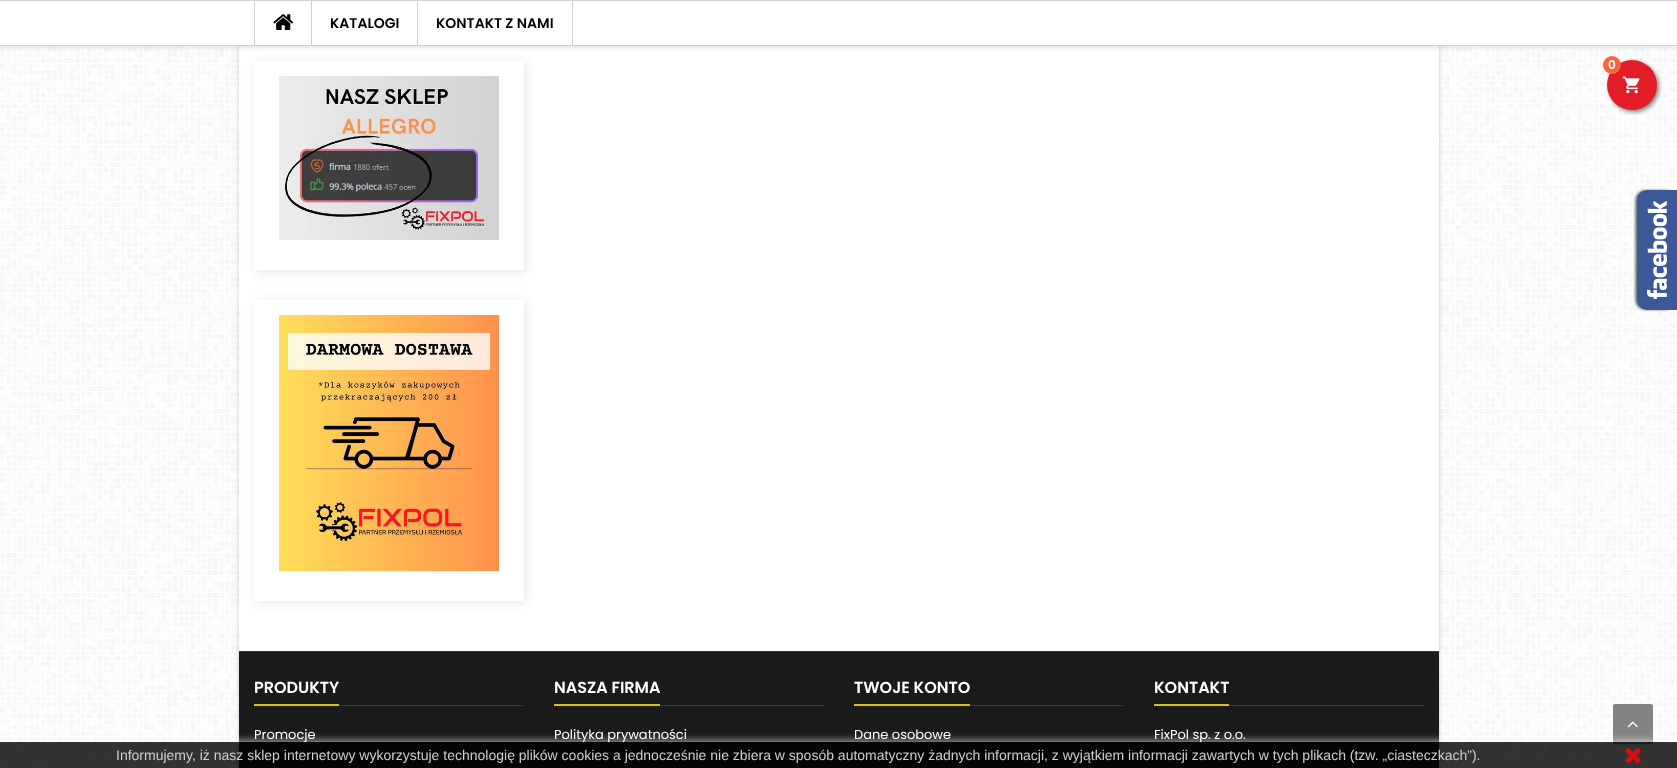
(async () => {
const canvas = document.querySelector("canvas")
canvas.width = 1677
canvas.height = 768
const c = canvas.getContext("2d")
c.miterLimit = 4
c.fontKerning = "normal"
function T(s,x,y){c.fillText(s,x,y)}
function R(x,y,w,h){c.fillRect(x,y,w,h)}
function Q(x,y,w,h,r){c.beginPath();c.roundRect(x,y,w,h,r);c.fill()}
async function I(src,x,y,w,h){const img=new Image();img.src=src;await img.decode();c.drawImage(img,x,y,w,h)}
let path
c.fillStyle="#fff"
R(0,0,1677,768)
await I("1.png",0,46,1677,722)
c.fillStyle="#00000033"
c.filter="blur(2px)"
c.beginPath()
c.rect(239,-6,1200,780)
c.fill()
c.filter="none"
c.fillStyle="#fff"
R(239,46,1200,605)
c.fillStyle="#0000001a"
c.filter="blur(2px)"
c.beginPath()
c.rect(0,2,1677,46)
c.fill()
c.filter="none"
c.fillStyle="#fff"
R(0,1,1677,44)
c.fillStyle="#d1d1d1"
R(0,0,1677,1)
c.save()
path = new Path2D("M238 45h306v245h-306zm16 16h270v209h-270z")
c.clip(path,"evenodd")
c.fillStyle="#0000001a"
c.filter="blur(5.5px)"
c.beginPath()
c.rect(256,63,270,209)
c.fill()
c.filter="none"
c.restore()
R(0,45,1677,1)
R(254,1,1,44)
await I("2.png",273,14,21,16)
R(311,1,1,44)
c.font="600 14px Poppins"
c.fillStyle="#000"
T("KATALOGI",330,28)
c.fillStyle="#d1d1d1"
R(572,1,1,44)
R(417,1,1,44)
c.fillStyle="#000"
T("KONTAKT Z NAMI",436,28)
c.fillStyle="#00000080"
c.filter="blur(2px)"
c.beginPath()
c.roundRect(1609,62,50,50,25)
c.fill()
c.filter="none"
c.fillStyle="#e31d27"
c.beginPath()
c.arc(1632,85,25,0,7)
c.fill()
c.fillStyle="#f8653d"
c.beginPath()
c.arc(1612,65,9,0,7)
c.fill()
c.font="600 12px Poppins"
c.fillStyle="#fff"
T("0",1608,69)
await I("3.png",1622,76,18,18)
await I("4.png",279,76,220,164)
c.save()
path = new Path2D("M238 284h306v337h-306zm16 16h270v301h-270z")
c.clip(path,"evenodd")
c.fillStyle="#0000001a"
c.filter="blur(5.5px)"
c.beginPath()
c.rect(256,302,270,301)
c.fill()
c.filter="none"
c.restore()
await I("5.png",279,315,220,256)
c.fillStyle="#00000080"
c.filter="blur(1px)"
c.beginPath()
c.roundRect(1635,190,40,120,10)
c.fill()
c.filter="none"
c.fillStyle="#3b5998"
c.beginPath()
c.roundRect(1637,190,40,120,[10,0,0,10])
c.fill()
await I("6.png",1647,201,20,98)
c.fillStyle="#1b1a1b"
R(239,652,1200,116)
c.fillStyle="#383838"
R(239,651,1200,1)
R(339,705,185,1)
c.fillStyle="#d9c10d"
R(254,704,85,2)
c.font="600 16px Poppins"
c.fillStyle="#fff"
T("PRODUKTY",254,693)
c.font="13px Poppins"
T("Promocje",254,739)
c.fillStyle="#383838"
R(660,705,164,1)
c.fillStyle="#d9c10d"
R(554,704,106,2)
c.font="600 16px Poppins"
c.fillStyle="#fff"
T("NASZA FIRMA",554,693)
c.font="13px Poppins"
T("Polityka prywatności",554,739)
c.fillStyle="#383838"
R(970,705,154,1)
c.fillStyle="#d9c10d"
R(854,704,116,2)
c.font="600 16px Poppins"
c.fillStyle="#fff"
T("TWOJE KONTO",854,693)
c.font="13px Poppins"
T("Dane osobowe",854,739)
c.fillStyle="#383838"
R(1229,705,195,1)
c.fillStyle="#d9c10d"
R(1154,704,75,2)
c.font="600 16px Poppins"
c.fillStyle="#fff"
T("KONTAKT",1154,693)
c.font="13px Poppins"
T("FixPol sp. z o.o.",1154,739)
c.fillStyle="#0000001a"
c.filter="blur(0.5px)"
c.beginPath()
c.roundRect(1613,705,40,40,2)
c.fill()
c.filter="none"
c.fillStyle="#858283"
Q(1613,704,40,40,2)
await I("7.png",1627,721,11,7)
c.save()
c.beginPath()
c.rect(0,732,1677,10)
c.clip()
c.fillStyle="#ffffffcc"
c.filter="blur(5px)"
c.beginPath()
c.rect(0,742,1677,26)
c.fill()
c.filter="none"
c.restore()
c.fillStyle="#000000cc"
R(0,742,1677,26)
c.font="14px Liberation Sans"
c.fillStyle="#cfcecf"
T("Informujemy, iż nasz sklep internetowy wykorzystuje technologię plików cookies a jednocześnie nie zbiera w sposób automatyczny żadnych informacji, z wyjątkiem informacji zawartych w tych plikach (tzw. „ciasteczkach”).",116,760)
await I("8.png",1625,748,16,16)
})()
